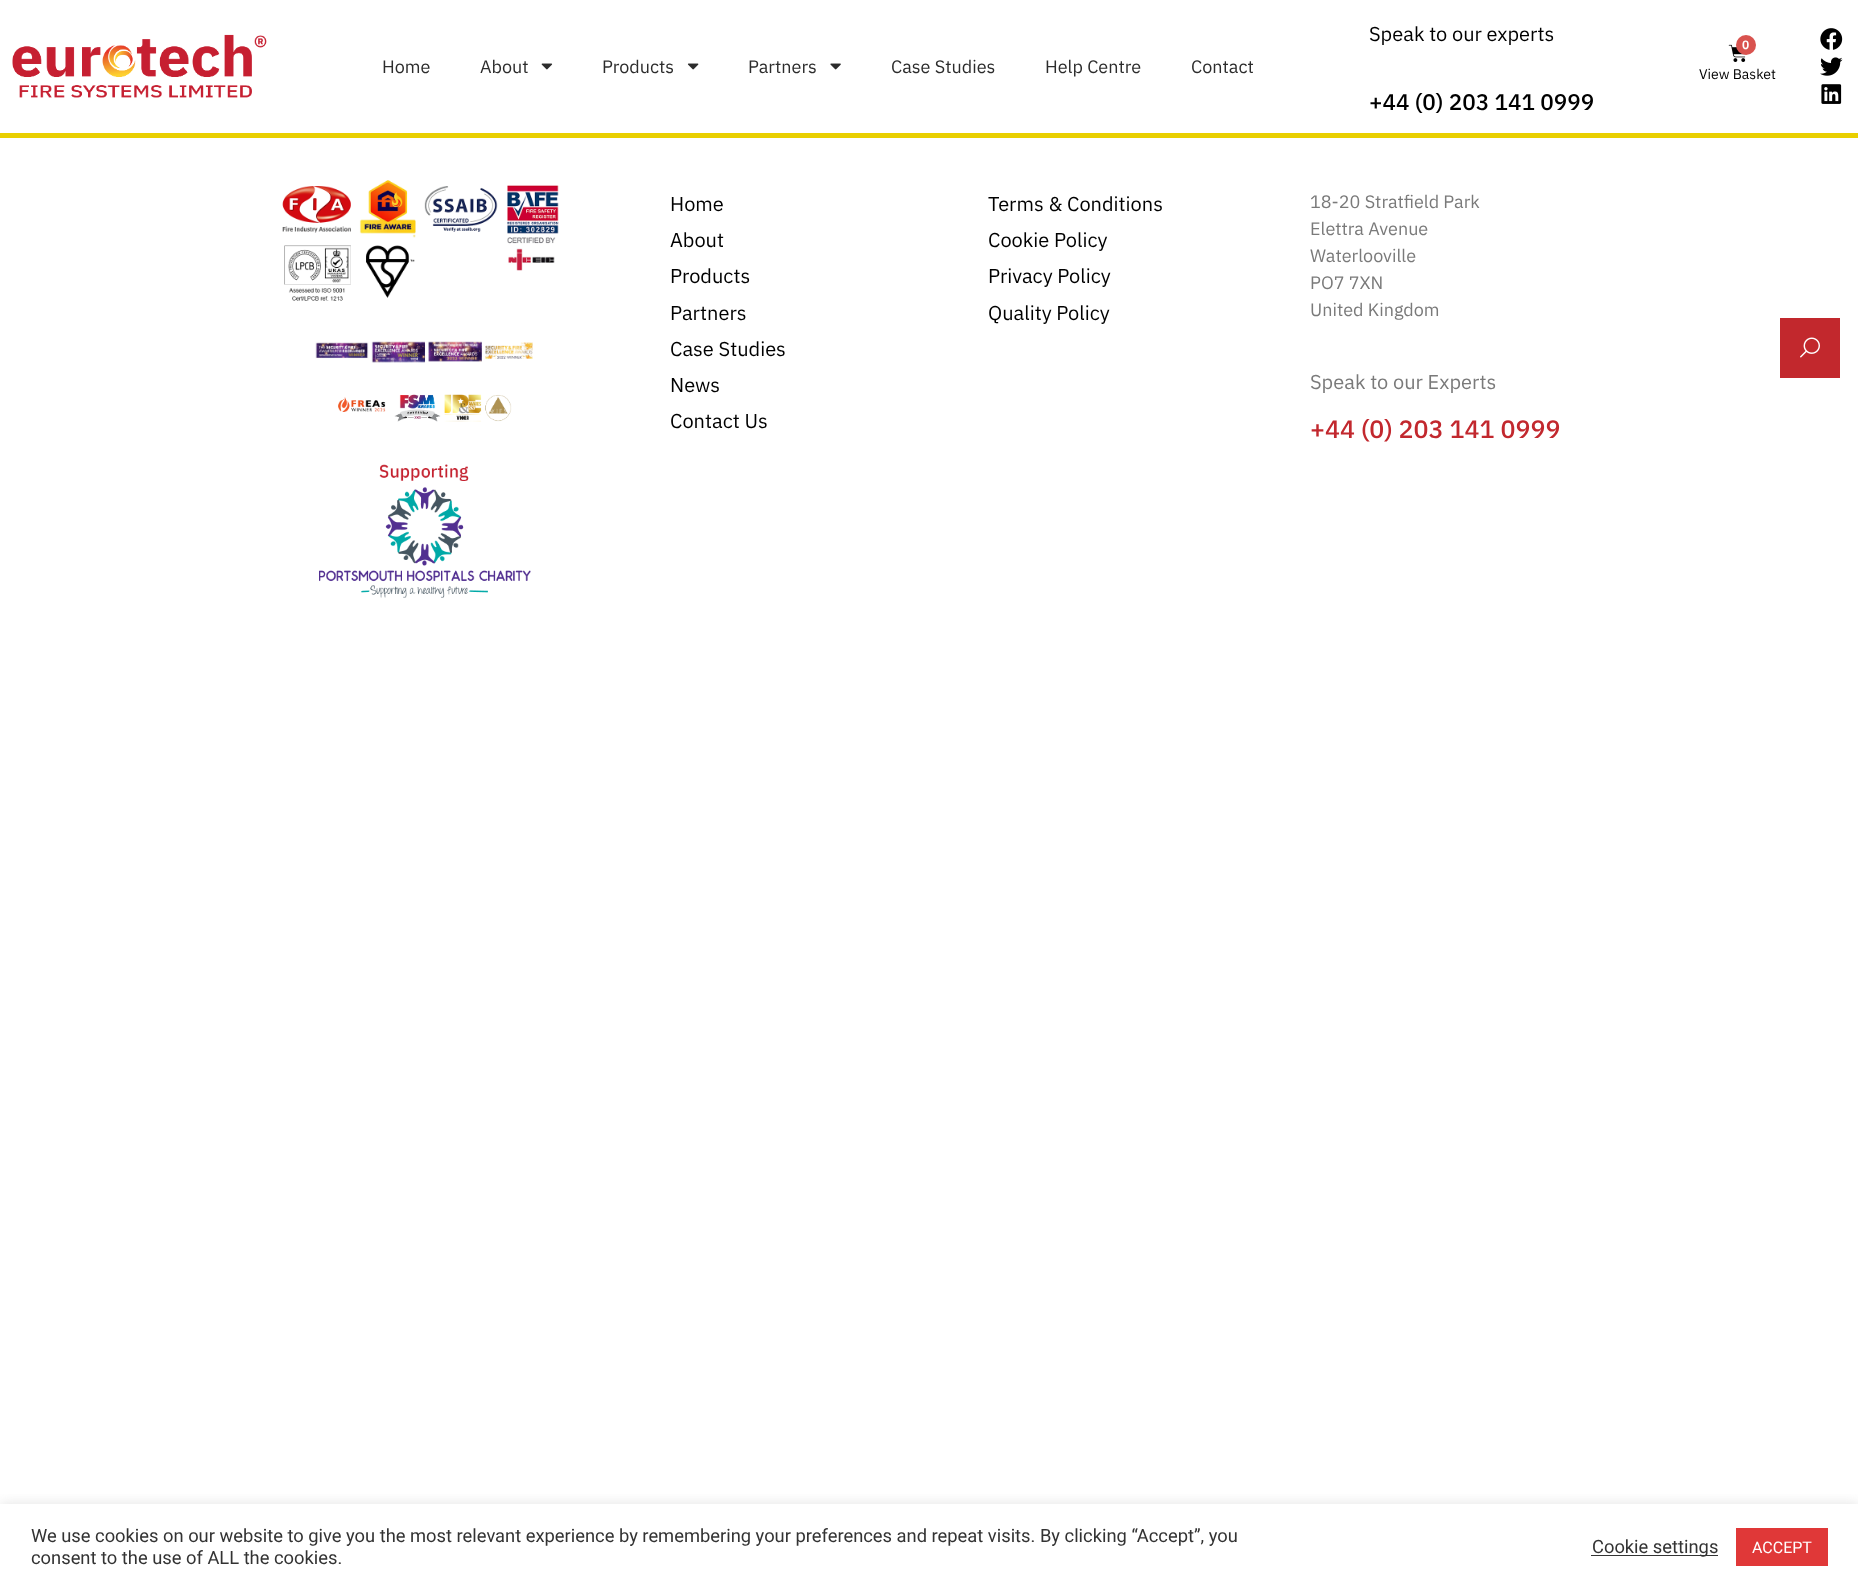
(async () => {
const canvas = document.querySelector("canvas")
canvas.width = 1858
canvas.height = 1590
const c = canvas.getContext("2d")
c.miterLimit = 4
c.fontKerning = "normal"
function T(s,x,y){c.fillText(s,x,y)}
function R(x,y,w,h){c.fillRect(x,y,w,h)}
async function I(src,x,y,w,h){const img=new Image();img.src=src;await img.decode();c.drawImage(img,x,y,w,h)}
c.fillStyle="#fff"
R(0,0,1858,1590)
c.fillStyle="#e9cf00"
R(0,133,1858,5)
await I("1.png",12,34,255,64)
c.font="18px IBM Plex Sans"
c.fillStyle="#2c2c2c"
T("Home",382,73)
T("About",480,73)
await I("2.png",541,63,12,7)
T("Products",602,73)
await I("3.png",687,63,12,7)
T("Partners",748,73)
await I("4.png",830,63,11,7)
T("Case Studies",891,73)
T("Help Centre",1045,73)
T("Contact",1191,73)
c.font="20px IBM Plex Sans"
c.fillStyle="#000"
T("Speak to our experts",1369,41)
c.font="500 22.5px IBM Plex Sans"
T("+44 (0) 203 141 0999",1369,110)
await I("5.png",1728,44,18,18)
c.fillStyle="#d9534f"
c.beginPath()
c.arc(1746,45,10,0,7)
c.fill()
c.font="600 12px IBM Plex Sans"
c.fillStyle="#fff"
T("0",1742,49)
c.font="14px IBM Plex Sans"
c.fillStyle="#000"
T("View Basket",1699,79)
await I("6.png",1820,28,23,22)
await I("7.png",1820,57,23,19)
await I("8.png",1821,84,21,20)
await I("9.png",282,180,277,121)
await I("10.png",315,341,218,22)
await I("11.png",338,394,174,28)
await I("12.png",319,464,212,134)
c.font="20px IBM Plex Sans"
T("Home",670,211)
T("About",670,247)
T("Products",670,283)
T("Partners",670,320)
T("Case Studies",670,356)
T("News",670,392)
T("Contact Us",670,428)
T("Terms & Conditions",988,211)
T("Cookie Policy",988,247)
T("Privacy Policy",988,283)
T("Quality Policy",988,320)
c.font="18px IBM Plex Sans"
c.fillStyle="#7a7a7a"
T("18-20 Stratfield Park",1310,208)
T("Elettra Avenue",1310,235)
T("Waterlooville",1310,262)
T("PO7 7XN",1310,289)
T("United Kingdom",1310,316)
c.font="20px IBM Plex Sans"
T("Speak to our Experts",1310,389)
c.font="500 25px IBM Plex Sans"
c.fillStyle="#c2282e"
T("+44 (0) 203 141 0999",1310,438)
c.fillStyle="#c2282d"
R(1780,318,60,60)
await I("13.png",1800,337,20,21)
c.save()
c.beginPath()
c.rect(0,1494,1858,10)
c.clip()
c.fillStyle="#acabab4d"
c.filter="blur(6px)"
c.beginPath()
c.rect(0,1503,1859,86)
c.fill()
c.filter="none"
c.restore()
c.font="18.33px Roboto"
c.fillStyle="#333"
T("We use cookies on our website to give you the most relevant experience by remembering your preferences and repeat visits. By clicking “Accept”, you",31,1542)
T("consent to the use of ALL the cookies.",31,1564)
R(1591,1555,127,1)
T("Cookie settings",1592,1553)
c.fillStyle="#e03838"
R(1736,1528,92,38)
c.font="16px Roboto"
c.fillStyle="#fff"
T("ACCEPT",1752,1553)
})()
